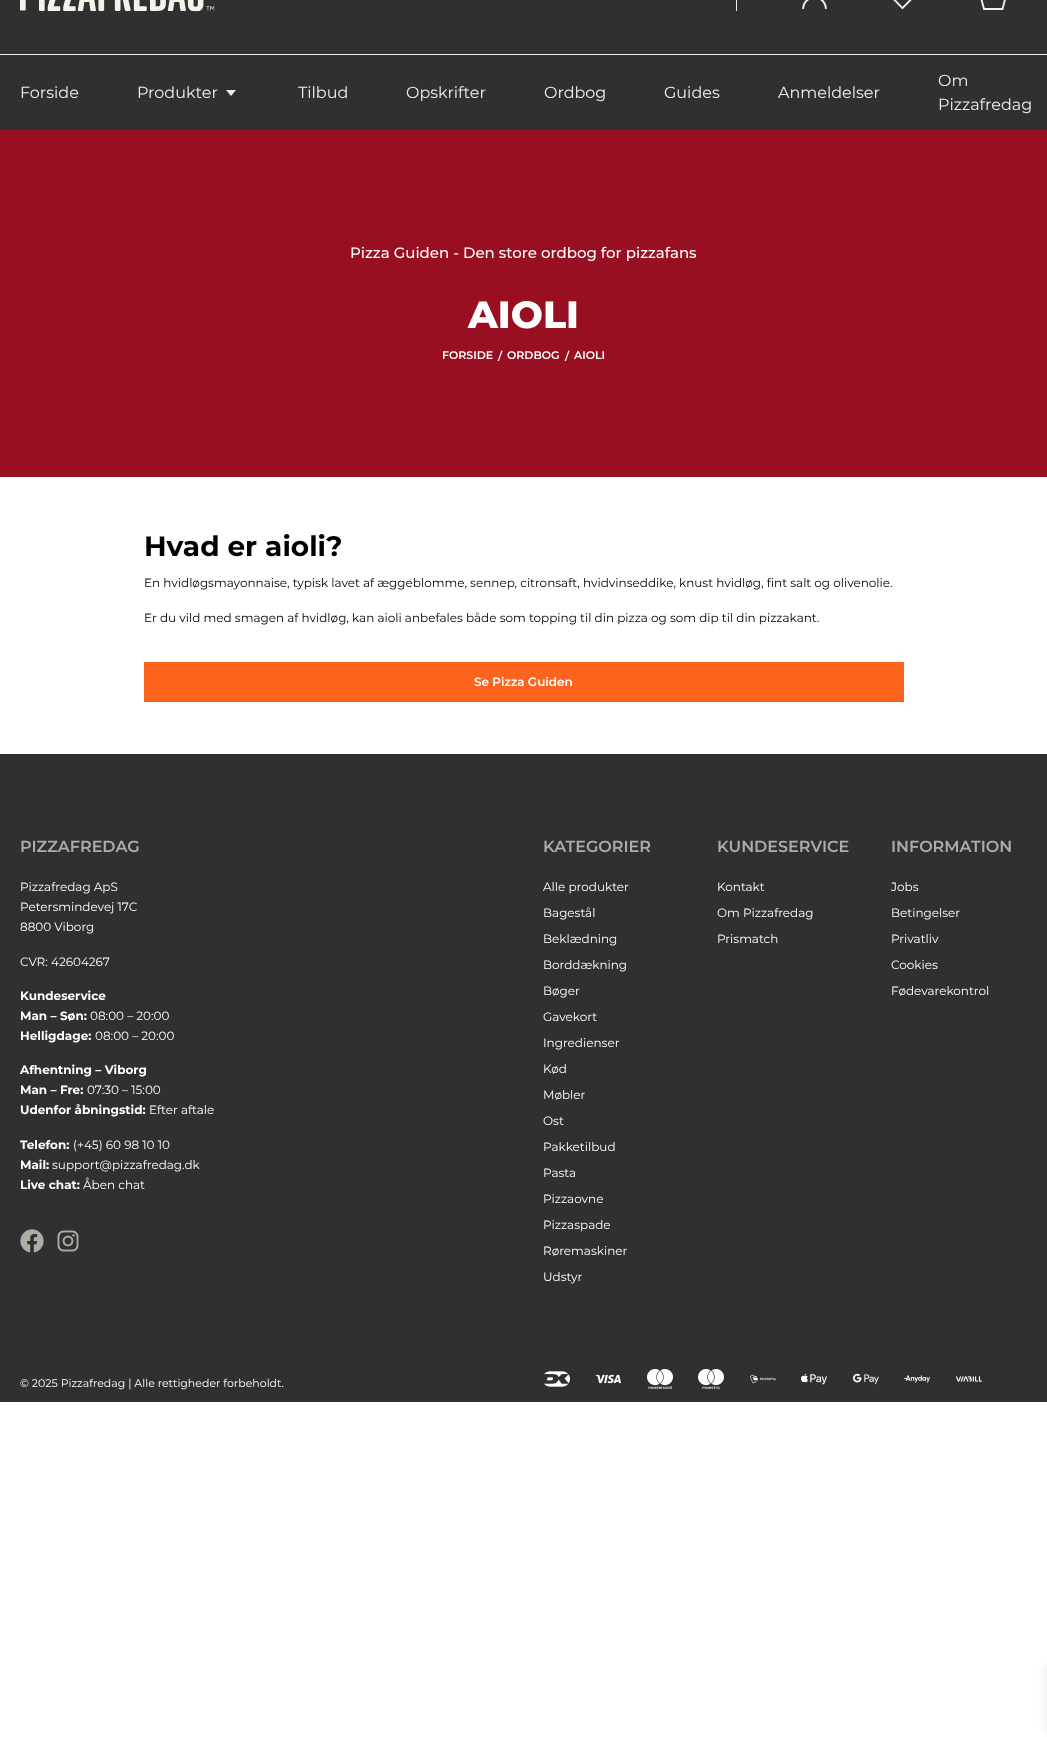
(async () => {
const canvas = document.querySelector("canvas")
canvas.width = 1047
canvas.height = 1737
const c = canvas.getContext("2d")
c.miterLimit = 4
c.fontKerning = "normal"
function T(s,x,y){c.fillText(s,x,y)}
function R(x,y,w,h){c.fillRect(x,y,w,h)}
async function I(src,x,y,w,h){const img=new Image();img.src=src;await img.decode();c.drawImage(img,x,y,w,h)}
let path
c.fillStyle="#fff"
R(0,0,1047,1737)
c.fillStyle="#303030"
R(0,0,1047,54)
await I("1.png",20,0,195,12)
c.fillStyle="#ecefee"
R(736,0,1,11)
await I("2.png",802,0,25,9)
await I("3.png",893,0,19,9)
path = new Path2D("M979.5-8h27.5l-4.5 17h-18.5z")
c.strokeStyle="#ecefee"
c.lineWidth=1.9
c.stroke(path)
c.fillStyle="#303030"
R(0,55,1047,75)
c.fillStyle="#ecefee"
R(0,54,1047,1)
c.font="16px Montserrat"
T("Forside",20,98)
T("Produkter",137,98)
path = new Path2D("M226 90h10l-5 6z")
c.fill(path)
T("Tilbud",298,98)
T("Opskrifter",406,98)
T("Ordbog",544,98)
T("Guides",664,98)
T("Anmeldelser",778,98)
T("Om",938,86)
T("Pizzafredag",938,110)
c.fillStyle="#970f21"
R(0,130,1047,347)
c.font="500 15px Montserrat"
c.fillStyle="#fff"
T("Pizza Guiden - Den store ordbog for pizzafans",350,258)
c.font="800 38px Montserrat"
T("AIOLI",468,328)
c.font="600 11px Montserrat"
T("FORSIDE",442,359)
T("/",498,360)
T("ORDBOG",507,359)
T("/",565,360)
T("AIOLI",574,359)
c.font="bold 28px Montserrat"
c.fillStyle="#000"
T("Hvad er aioli?",144,556)
c.font="12px Montserrat"
T("En hvidløgsmayonnaise, typisk lavet af æggeblomme, sennep, citronsaft, hvidvinseddike, knust hvidløg, fint salt og olivenolie.",144,587)
T("Er du vild med smagen af hvidløg, kan aioli anbefales både som topping til din pizza og som dip til din pizzakant.",144,622)
c.fillStyle="#fd651f"
R(144,662,760,40)
c.font="600 12px Montserrat"
c.fillStyle="#fff"
T("Se Pizza Guiden",474,686)
c.fillStyle="#303030"
R(0,754,1047,648)
c.font="600 16px Montserrat"
c.fillStyle="#aeada4"
T("PIZZAFREDAG",20,852)
c.font="12px Montserrat"
c.fillStyle="#fff"
T("Pizzafredag ApS",20,891)
T("Petersmindevej 17C",20,911)
T("8800 Viborg",20,931)
T("CVR: 42604267",20,966)
c.font="bold 12px Montserrat"
T("Kundeservice",20,1000)
T("Man – Søn:",20,1020)
c.font="12px Montserrat"
T("08:00 – 20:00",90,1020)
c.font="bold 12px Montserrat"
T("Helligdage:",20,1040)
c.font="12px Montserrat"
T("08:00 – 20:00",95,1040)
c.font="bold 12px Montserrat"
T("Afhentning – Viborg",20,1074)
T("Man – Fre:",20,1094)
c.font="12px Montserrat"
T("07:30 – 15:00",87,1094)
c.font="bold 12px Montserrat"
T("Udenfor åbningstid:",20,1114)
c.font="12px Montserrat"
T("Efter aftale",149,1114)
c.font="bold 12px Montserrat"
T("Telefon:",20,1149)
c.font="12px Montserrat"
T("(+45) 60 98 10 10",73,1149)
c.font="bold 12px Montserrat"
T("Mail:",20,1169)
c.font="12px Montserrat"
T("support@pizzafredag.dk",52,1169)
c.font="bold 12px Montserrat"
T("Live chat:",20,1189)
c.font="12px Montserrat"
T("Åben chat",83,1189)
await I("4.png",20,1229,24,24)
await I("5.png",57,1230,22,22)
c.font="600 16px Montserrat"
c.fillStyle="#aeada4"
T("KATEGORIER",543,852)
c.font="12px Montserrat"
c.fillStyle="#fff"
T("Alle produkter",543,891)
T("Bagestål",543,917)
T("Beklædning",543,943)
T("Borddækning",543,969)
T("Bøger",543,995)
T("Gavekort",543,1021)
T("Ingredienser",543,1047)
T("Kød",543,1073)
T("Møbler",543,1099)
T("Ost",543,1125)
T("Pakketilbud",543,1151)
T("Pasta",543,1177)
T("Pizzaovne",543,1203)
T("Pizzaspade",543,1229)
T("Røremaskiner",543,1255)
T("Udstyr",543,1281)
c.font="600 16px Montserrat"
c.fillStyle="#aeada4"
T("KUNDESERVICE",717,852)
c.font="12px Montserrat"
c.fillStyle="#fff"
T("Kontakt",717,891)
T("Om Pizzafredag",717,917)
T("Prismatch",717,943)
c.font="600 16px Montserrat"
c.fillStyle="#aeada4"
T("INFORMATION",891,852)
c.font="12px Montserrat"
c.fillStyle="#fff"
T("Jobs",891,891)
T("Betingelser",891,917)
T("Privatliv",891,943)
T("Cookies",891,969)
T("Fødevarekontrol",891,995)
c.font="11px Montserrat"
T("© 2025 Pizzafredag | Alle rettigheder forbeholdt.",20,1387)
await I("6.png",544,1371,26,16)
await I("7.png",595,1374,26,10)
await I("8.png",647,1369,26,20)
await I("9.png",698,1369,26,20)
await I("10.png",750,1374,26,10)
await I("11.png",801,1373,26,12)
await I("12.png",853,1373,26,12)
await I("13.png",904,1375,26,8)
await I("14.png",956,1376,26,6)
c.fillStyle="#0000001a"
c.filter="blur(5px)"
c.beginPath()
c.rect(1047,1666,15,66)
c.fill()
c.filter="none"
})()
